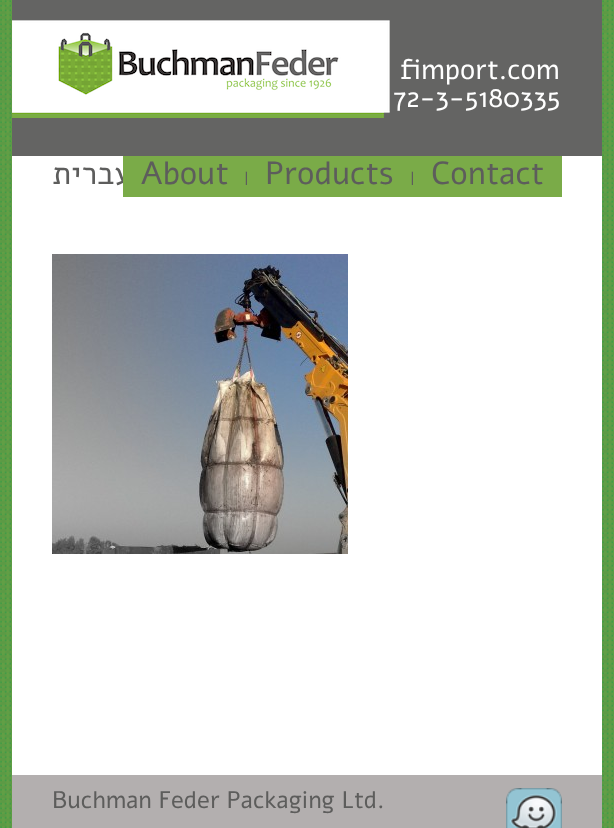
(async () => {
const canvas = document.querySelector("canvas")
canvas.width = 614
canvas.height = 828
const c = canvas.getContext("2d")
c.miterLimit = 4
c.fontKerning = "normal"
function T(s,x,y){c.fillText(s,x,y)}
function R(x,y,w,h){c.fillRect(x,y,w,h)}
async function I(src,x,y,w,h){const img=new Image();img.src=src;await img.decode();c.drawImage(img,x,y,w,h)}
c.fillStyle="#fff"
R(0,0,614,828)
await I("1.png",0,0,614,828)
R(12,156,590,619)
c.fillStyle="#646463"
R(12,0,590,156)
await I("2.png",12,20,378,98)
c.font="28px Alef"
c.fillStyle="#fff"
T("fimport.com",400,79)
T("72-3-5180335",393,107)
c.direction="rtl"
c.font="32px Alef"
c.fillStyle="#5d5d5c"
T("עברית",132,184)
c.fillStyle="#7aab48"
R(123,156,439,41)
c.direction="ltr"
c.fillStyle="#5d5d5c"
T("About",141,184)
c.font="16px Alef"
T("|",244,184)
c.font="32px Alef"
T("Products",265,184)
c.font="16px Alef"
T("|",410,184)
c.font="32px Alef"
T("Contact",431,184)
await I("3.png",52,254,296,300)
c.fillStyle="#b3afaf"
R(12,775,590,53)
c.font="24px Alef"
c.fillStyle="#5d5d5c"
T("Buchman Feder Packaging Ltd.",52,808)
await I("4.png",506,788,56,40)
})()
